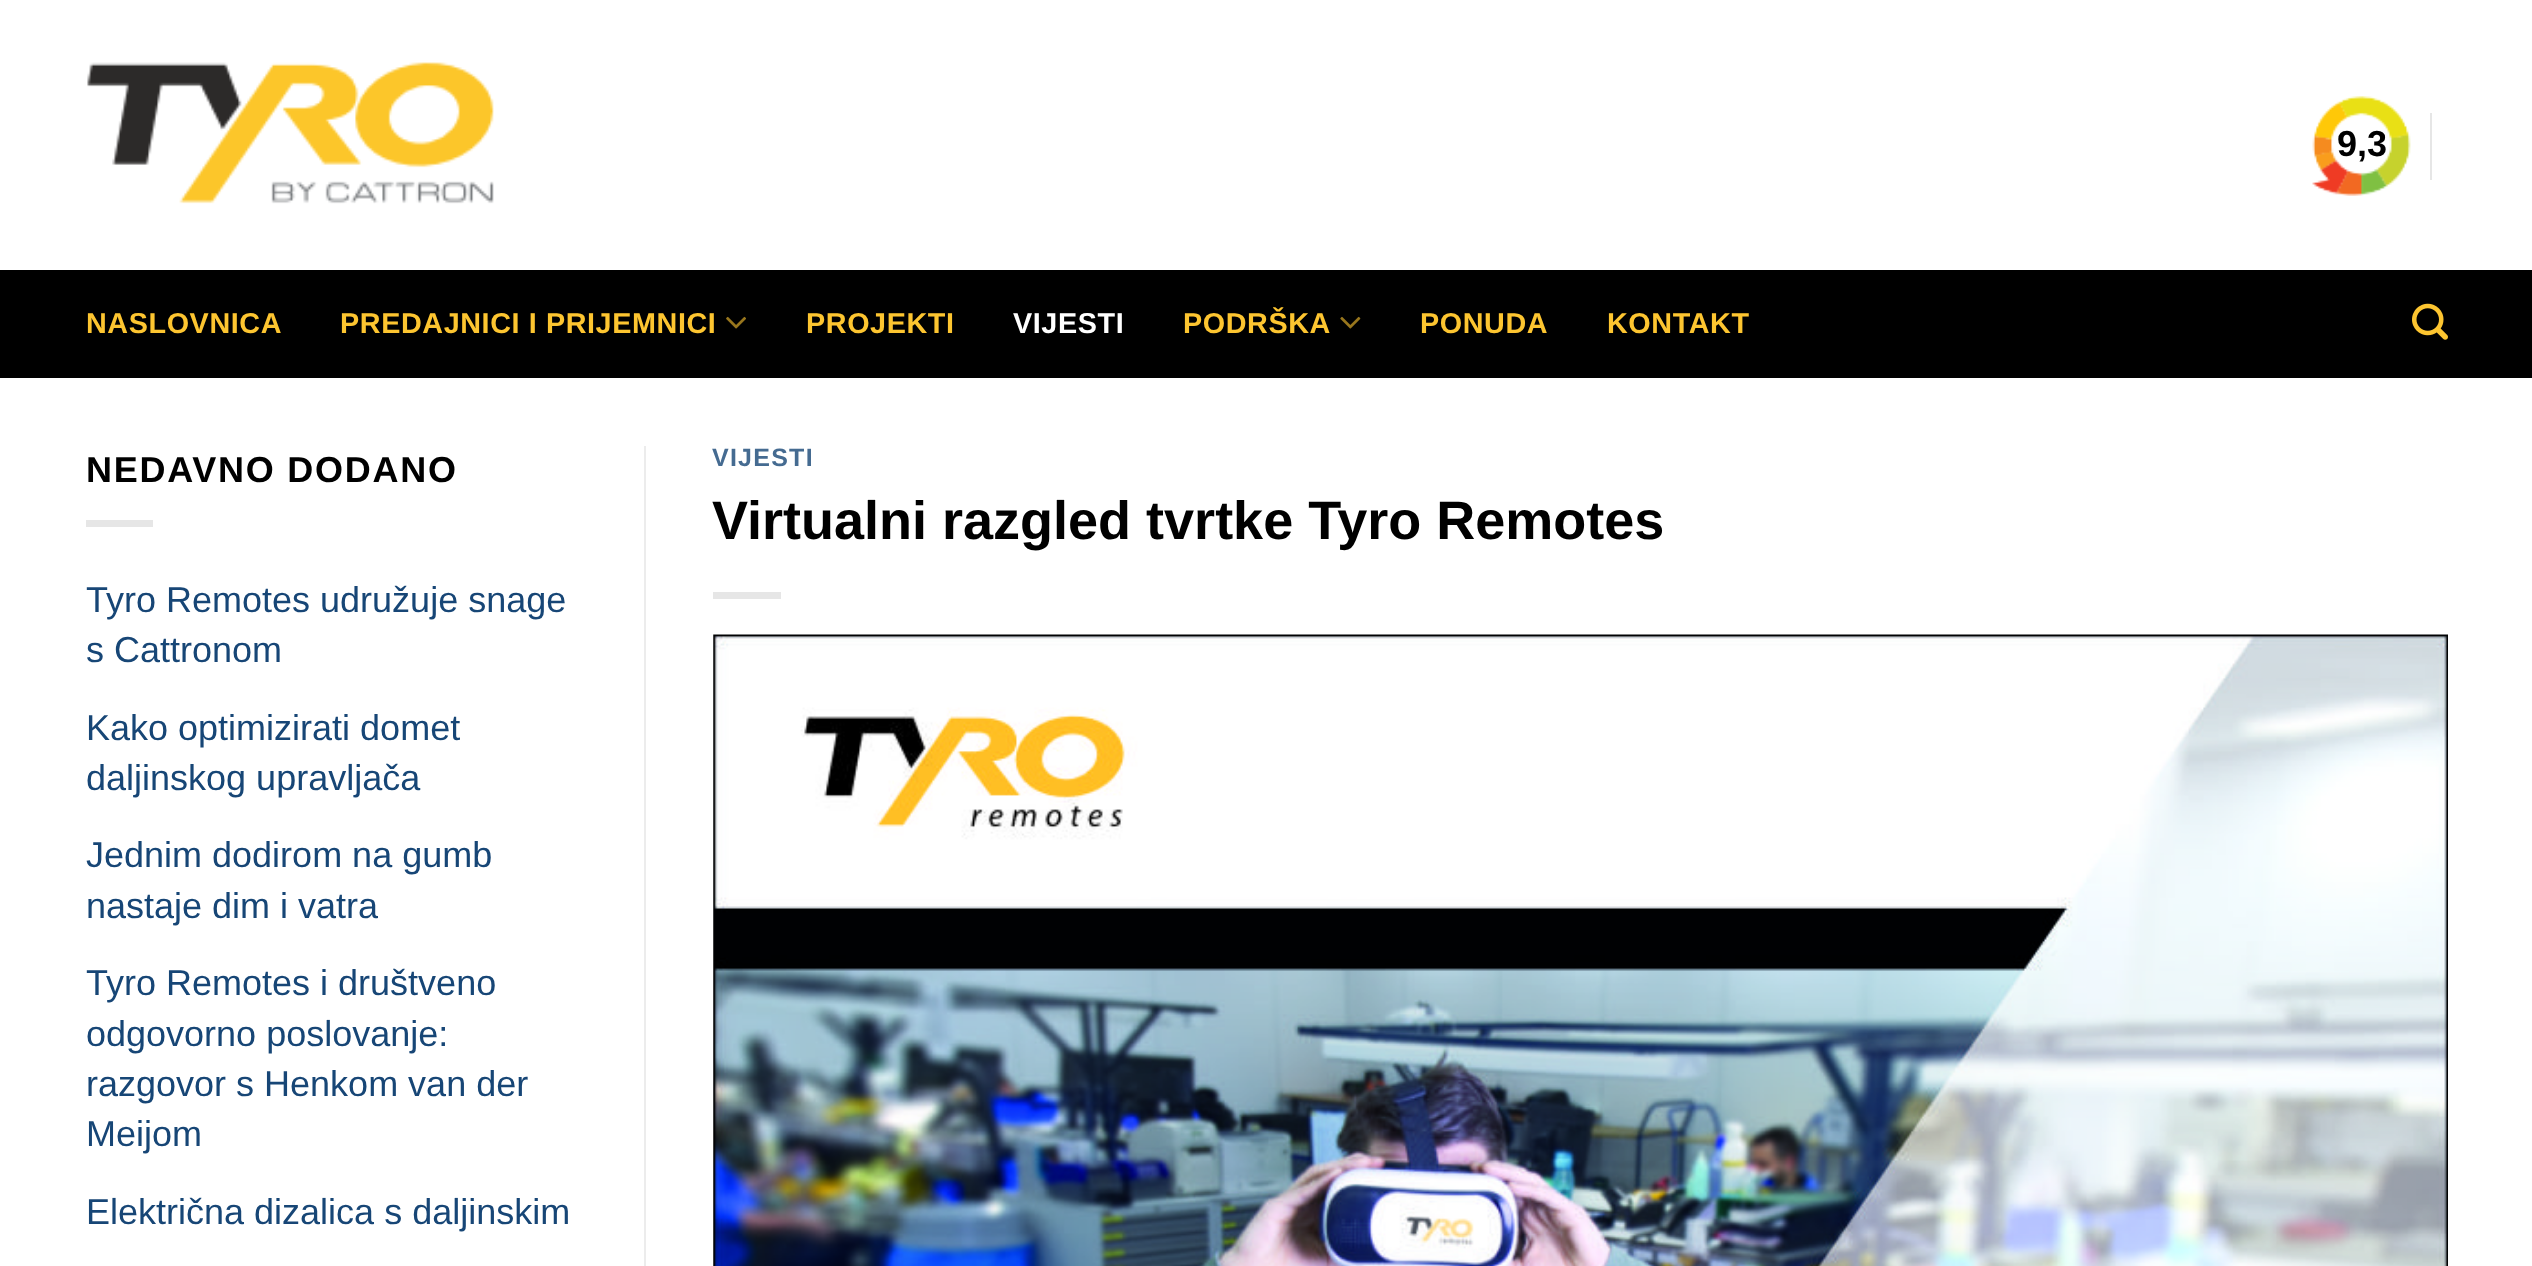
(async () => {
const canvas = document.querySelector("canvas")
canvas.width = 2532
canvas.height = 1266
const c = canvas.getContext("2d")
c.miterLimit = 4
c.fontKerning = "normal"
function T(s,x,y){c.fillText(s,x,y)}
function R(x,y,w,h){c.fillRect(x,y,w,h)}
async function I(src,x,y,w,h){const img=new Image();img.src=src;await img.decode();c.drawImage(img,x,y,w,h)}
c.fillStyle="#fff"
R(0,0,2532,1266)
await I("1.png",87,62,407,142)
await I("2.png",2312,96,99,100)
c.font="bold 36px Liberation Sans"
c.fillStyle="#000"
T("9,3",2337,156)
c.fillStyle="#e6e6e6"
R(2430,113,2,67)
c.fillStyle="#000"
R(0,270,2532,108)
c.letterSpacing="0.6px"
c.font="bold 28.75px Liberation Sans"
c.fillStyle="#fdc530"
T("NASLOVNICA",86,333)
T("PREDAJNICI I PRIJEMNICI",340,333)
await I("3.png",726,316,20,13)
T("PROJEKTI",806,333)
c.fillStyle="#fff"
T("VIJESTI",1013,333)
c.fillStyle="#fdc530"
T("PODRŠKA",1183,333)
await I("4.png",1340,316,21,13)
T("PONUDA",1420,333)
T("KONTAKT",1607,333)
await I("5.png",2412,303,36,37)
c.letterSpacing="1.75px"
c.font="bold 36px Liberation Sans"
c.fillStyle="#000"
T("NEDAVNO DODANO",86,482)
c.fillStyle="#e6e6e6"
R(86,520,67,7)
c.letterSpacing="0px"
c.font="36px Liberation Sans"
c.fillStyle="#174676"
T("Tyro Remotes udružuje snage",86,612)
T("s Cattronom",86,662)
T("Kako optimizirati domet",86,740)
T("daljinskog upravljača",86,790)
T("Jednim dodirom na gumb",86,867)
T("nastaje dim i vatra",86,918)
T("Tyro Remotes i društveno",86,995)
T("odgovorno poslovanje:",86,1046)
T("razgovor s Henkom van der",86,1096)
T("Meijom",86,1146)
T("Električna dizalica s daljinskim",86,1224)
c.fillStyle="#ececec"
R(644,446,2,820)
c.letterSpacing="1.25px"
c.font="bold 25px Liberation Sans"
c.fillStyle="#456b91"
T("VIJESTI",712,466)
c.letterSpacing="0px"
c.font="bold 54px Liberation Sans"
c.fillStyle="#000"
T("Virtualni razgled tvrtke Tyro Remotes",712,539)
c.fillStyle="#e6e6e6"
R(713,592,68,7)
await I("6.png",713,634,1735,632)
})()
